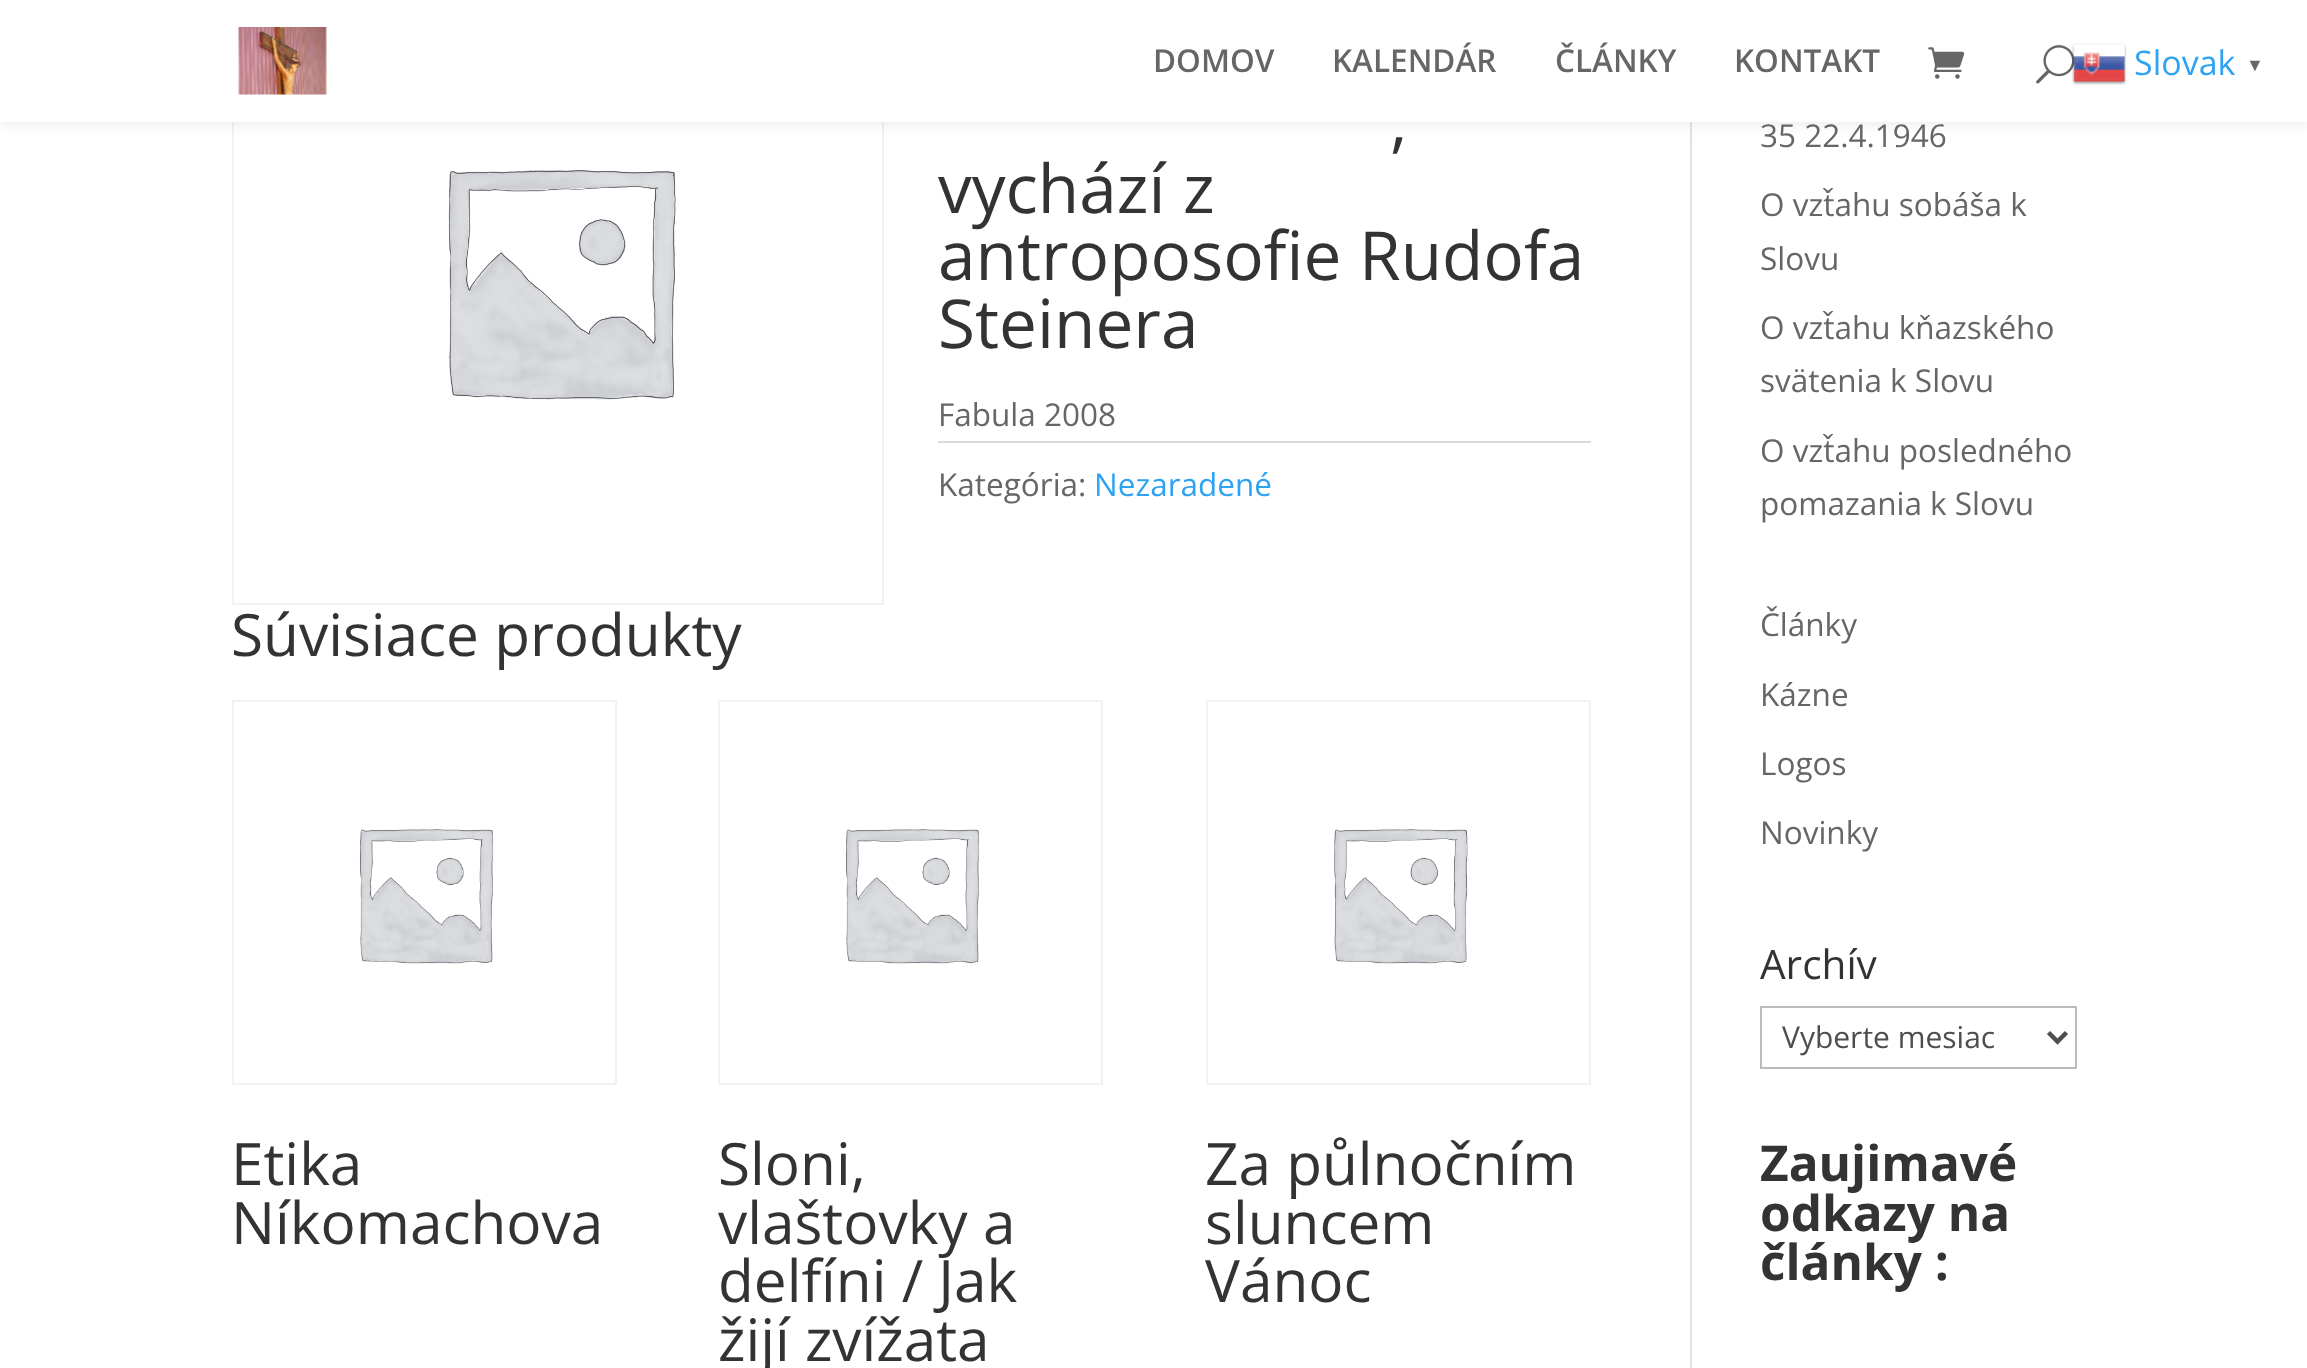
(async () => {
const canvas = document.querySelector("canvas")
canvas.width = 2307
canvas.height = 1368
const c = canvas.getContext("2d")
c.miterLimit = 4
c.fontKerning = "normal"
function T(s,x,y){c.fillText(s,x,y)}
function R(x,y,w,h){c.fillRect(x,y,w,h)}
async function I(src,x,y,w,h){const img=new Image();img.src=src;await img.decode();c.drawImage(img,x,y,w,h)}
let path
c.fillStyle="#fff"
R(0,0,2307,1368)
c.fillStyle="#e2e2e2"
R(1690,122,2,1246)
c.strokeStyle="#f2f2f2"
c.lineWidth=2
c.strokeRect(233,-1,650,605)
c.fillStyle="#0000001a"
c.filter="blur(8px)"
c.beginPath()
c.rect(0,0,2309,122)
c.fill()
c.filter="none"
c.fillStyle="#fff"
R(0,0,2307,122)
await I("1.png",238,27,89,68)
c.font="600 31.5px Open Sans"
c.fillStyle="#666"
T("DOMOV",1153,72)
T("KALENDÁR",1332,72)
T("ČLÁNKY",1555,72)
T("KONTAKT",1734,72)
await I("2.png",1928,47,37,32)
await I("3.png",2036,45,39,39)
await I("4.png",448,170,228,230)
c.font="67.5px Open Sans"
c.fillStyle="#333"
T(",",1390,145)
T("vychází z",938,213)
T("antroposofie Rudofa",938,280)
T("Steinera",938,348)
c.font="31.5px Open Sans"
c.fillStyle="#666"
T("Fabula 2008",938,426)
c.fillStyle="#dadada"
R(938,441,653,2)
c.fillStyle="#666"
T("Kategória:",938,496)
c.fillStyle="#2ea3f2"
T("Nezaradené",1094,496)
c.font="58.5px Open Sans"
c.fillStyle="#333"
T("Súvisiace produkty",231,656)
c.strokeRect(233,701,383,383)
await I("5.png",359,829,135,135)
T("Etika",231,1185)
T("Níkomachova",231,1244)
c.strokeRect(719,701,383,383)
await I("6.png",845,829,135,135)
T("Sloni,",718,1185)
T("vlaštovky a",718,1244)
T("delfíni / Jak",718,1302)
T("žijí zvížata",718,1361)
c.strokeRect(1207,701,383,383)
await I("7.png",1334,829,134,135)
T("Za půlnočním",1205,1185)
T("sluncem",1205,1244)
T("Vánoc",1205,1302)
c.font="31.5px Open Sans"
c.fillStyle="#666"
T("35 22.4.1946",1760,147)
T("O vzťahu sobáša k",1760,216)
T("Slovu",1760,270)
T("O vzťahu kňazského",1760,339)
T("svätenia k Slovu",1760,392)
T("O vzťahu posledného",1760,462)
T("pomazania k Slovu",1760,515)
T("Články",1760,636)
T("Kázne",1760,706)
T("Logos",1760,775)
T("Novinky",1760,844)
c.font="40.5px Open Sans"
c.fillStyle="#333"
T("Archív",1760,979)
c.strokeStyle="#bbb"
c.strokeRect(1761,1007,315,61)
path = new Path2D("M2048.5 1032.5l9 9l9-9")
c.strokeStyle="#4e4e4e"
c.lineWidth=4.5
c.stroke(path)
c.font="30px Open Sans"
c.fillStyle="#4e4e4e"
T("Vyberte mesiac",1782,1048)
c.font="bold 49.5px Open Sans"
c.fillStyle="#333"
T("Zaujimavé",1760,1181)
T("odkazy na",1760,1231)
T("články :",1760,1280)
await I("8.png",2072,43,55,42)
c.font="34px Open Sans"
c.fillStyle="#2ea3f2"
T("Slovak",2134,75)
c.font="bold 18px Liberation Sans"
c.fillStyle="#666"
T("▼",2246,71)
})()
